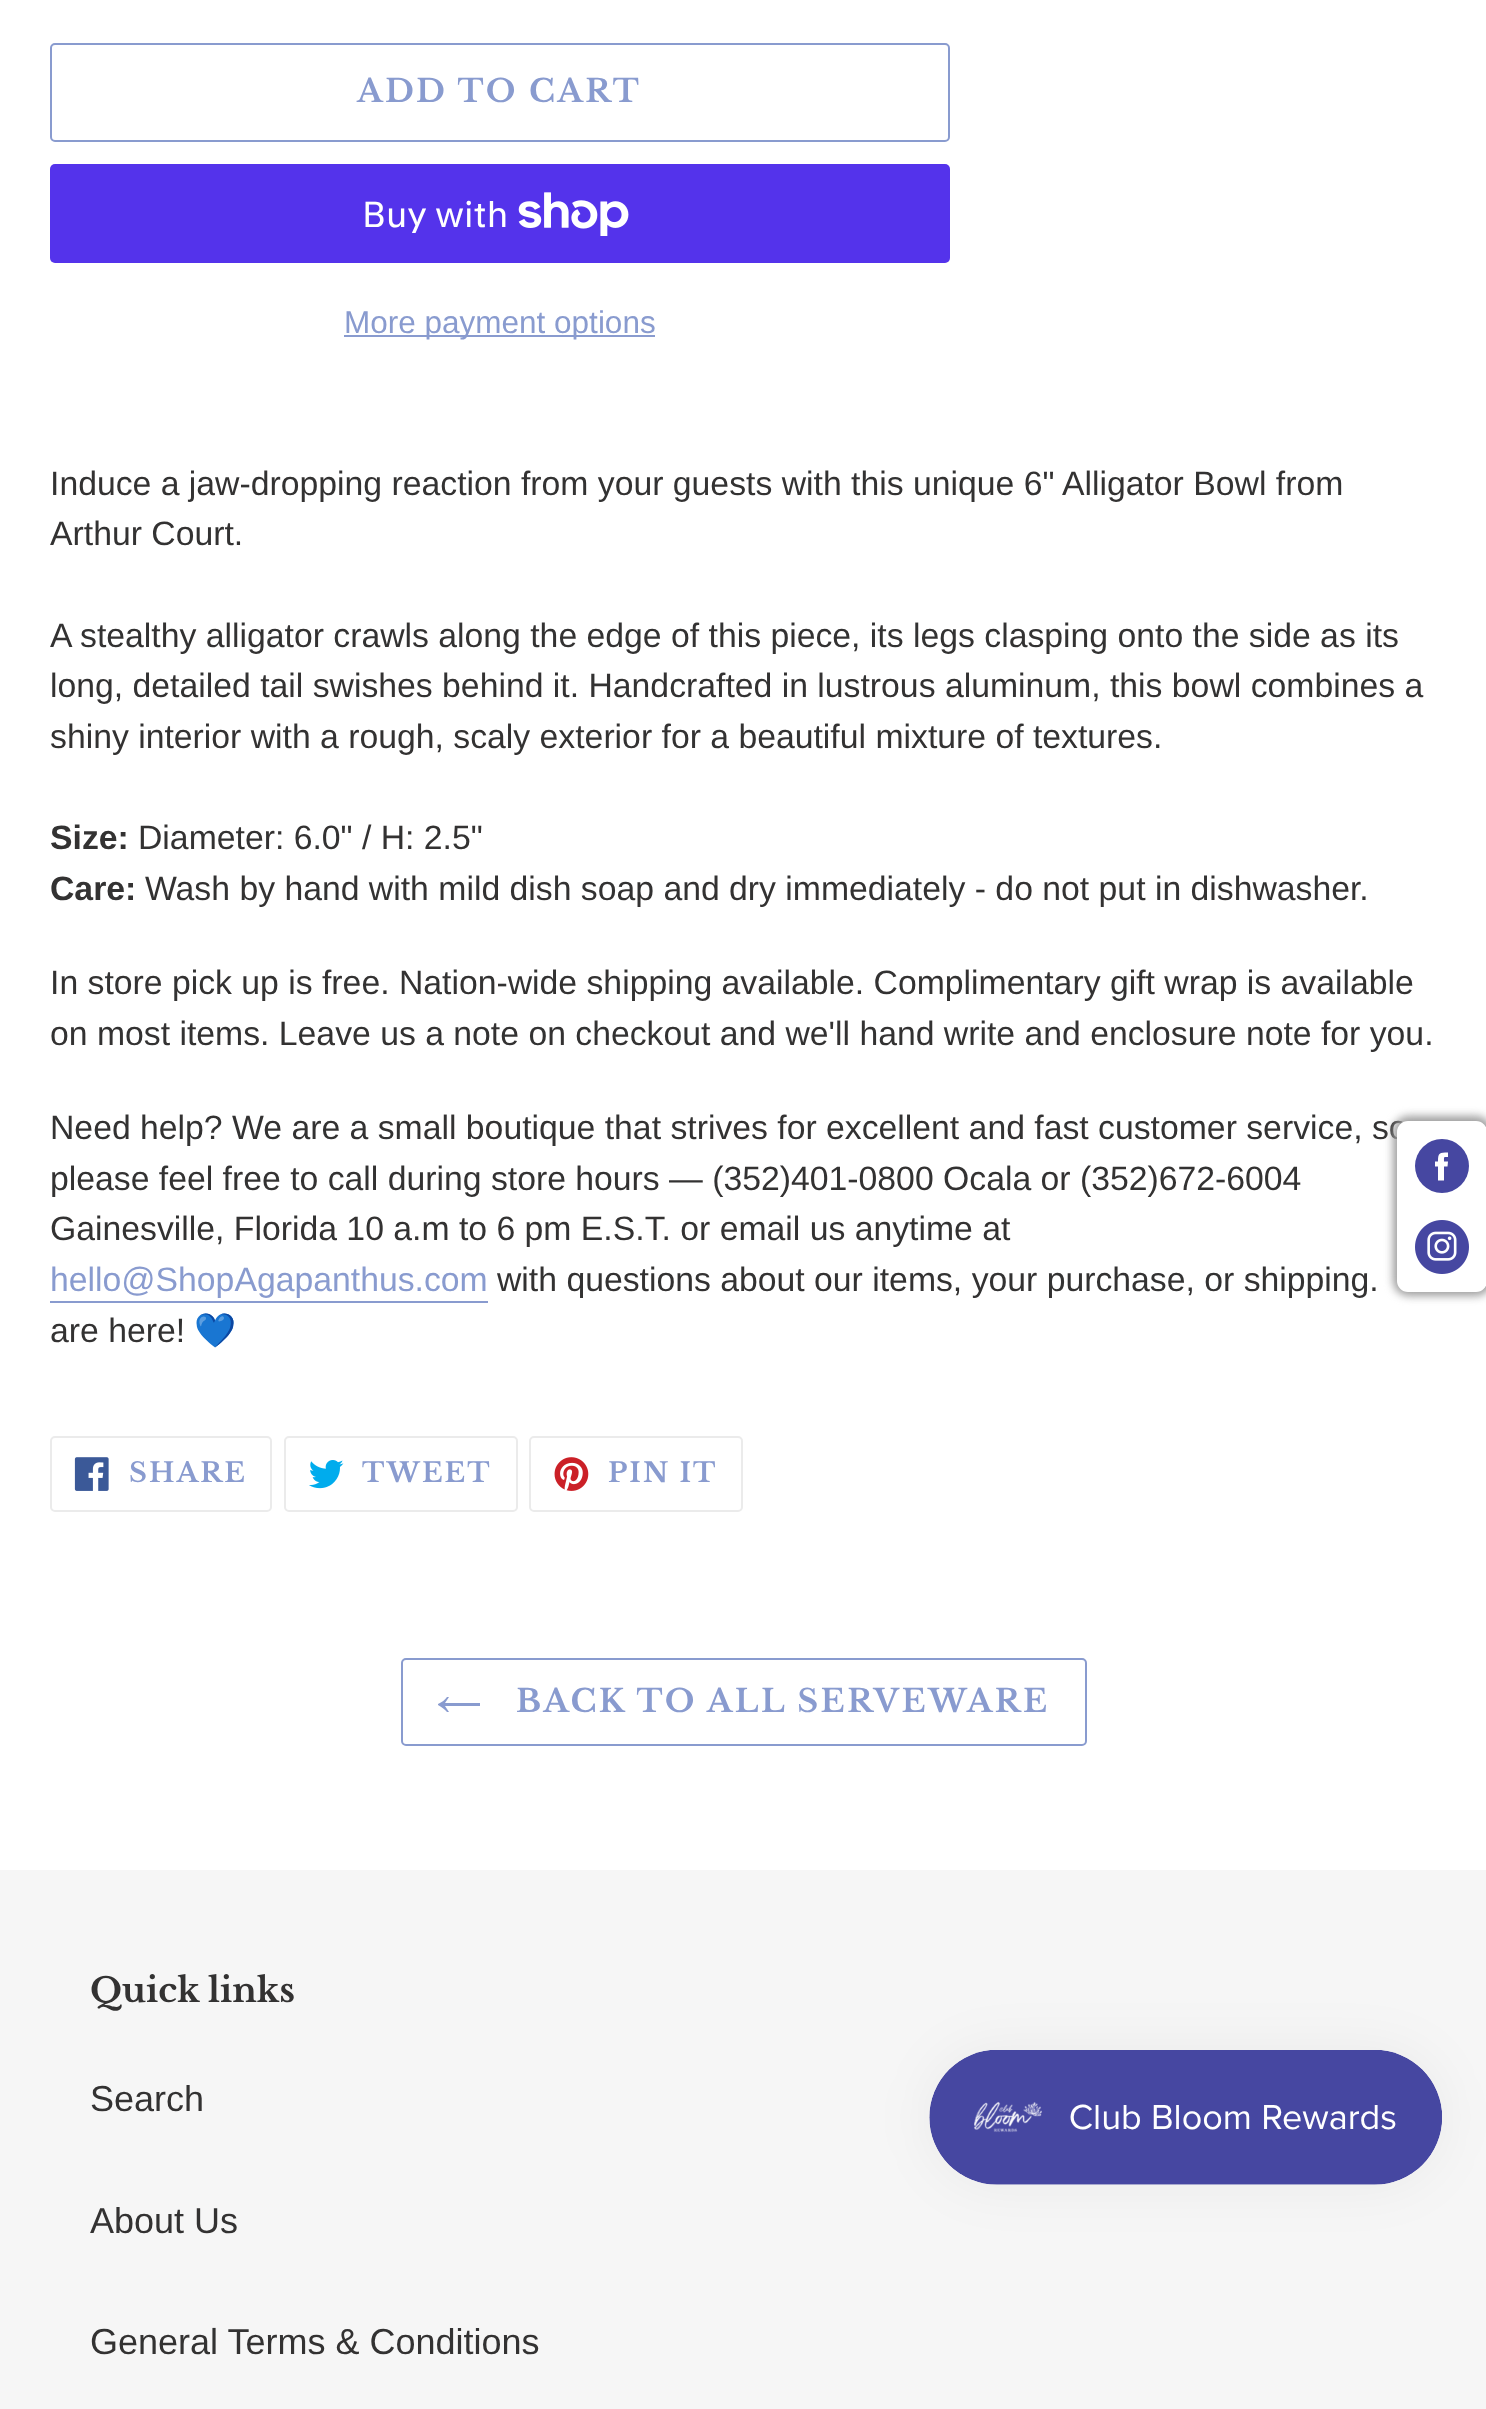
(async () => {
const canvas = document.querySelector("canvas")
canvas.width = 1486
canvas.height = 2409
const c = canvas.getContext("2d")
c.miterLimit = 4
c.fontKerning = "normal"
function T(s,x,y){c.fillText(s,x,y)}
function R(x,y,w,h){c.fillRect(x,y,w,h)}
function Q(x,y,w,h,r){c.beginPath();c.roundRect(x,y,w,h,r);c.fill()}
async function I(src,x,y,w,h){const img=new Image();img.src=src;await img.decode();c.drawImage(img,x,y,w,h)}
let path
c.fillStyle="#fff"
R(0,0,1486,2409)
c.beginPath()
c.roundRect(51,44,898,97,4)
c.strokeStyle="#899bcf"
c.lineWidth=2
c.stroke()
c.letterSpacing="2.5px"
c.font="bold 31.5px Libre Baskerville"
c.fillStyle="#899bcf"
T("ADD TO CART",357,102)
c.fillStyle="#5433eb"
Q(50,164,900,99,5)
c.letterSpacing="0px"
c.font="36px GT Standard"
c.fillStyle="#fff"
T("Buy with",362,227)
await I("1.png",518,192,111,44)
c.fillStyle="#899bcf"
R(344,335,311,2)
c.font="31.5px Liberation Sans"
T("More payment options",344,333)
c.font="33.75px Liberation Sans"
c.fillStyle="#333232"
T("Induce a jaw-dropping reaction from your guests with this unique 6\" Alligator Bowl from",50,495)
T("Arthur Court.",50,545)
T("A stealthy alligator crawls along the edge of this piece, its legs clasping onto the side as its",50,647)
T("long, detailed tail swishes behind it. Handcrafted in lustrous aluminum, this bowl combines a",50,697)
T("shiny interior with a rough, scaly exterior for a beautiful mixture of textures.",50,748)
c.font="bold 33.75px Liberation Sans"
T("Size:",50,849)
c.font="33.75px Liberation Sans"
T("Diameter: 6.0\" / H: 2.5\"",138,849)
c.font="bold 33.75px Liberation Sans"
T("Care:",50,900)
c.font="33.75px Liberation Sans"
T("Wash by hand with mild dish soap and dry immediately - do not put in dishwasher.",145,900)
T("In store pick up is free. Nation-wide shipping available. Complimentary gift wrap is available",50,994)
T("on most items. Leave us a note on checkout and we'll hand write and enclosure note for you.",50,1045)
T("Need help? We are a small boutique that strives for excellent and fast customer service, so",50,1139)
T("please feel free to call during store hours — (352)401-0800 Ocala or (352)672-6004",50,1190)
T("Gainesville, Florida 10 a.m to 6 pm E.S.T. or email us anytime at",50,1240)
c.fillStyle="#899bcf"
T("hello@ShopAgapanthus.com",50,1291)
R(50,1301,438,2)
c.fillStyle="#333232"
T("with questions about our items, your purchase, or shipping.",497,1291)
T("are here!",50,1342)
c.font="33.75px Noto Color Emoji"
T("💙",194,1342)
c.beginPath()
c.roundRect(51,1437,220,74,4)
c.strokeStyle="#ebebeb"
c.stroke()
await I("2.png",74,1457,35,34)
c.letterSpacing="2px"
c.font="bold 27px Libre Baskerville"
c.fillStyle="#899bcf"
T("SHARE",129,1482)
c.beginPath()
c.roundRect(285,1437,232,74,4)
c.stroke()
await I("3.png",309,1460,35,29)
T("TWEET",362,1482)
c.beginPath()
c.roundRect(530,1437,212,74,4)
c.stroke()
await I("4.png",554,1457,35,34)
T("PIN IT",608,1482)
c.fillStyle="#9e9e9e"
c.filter="blur(4.5px)"
c.beginPath()
c.roundRect(1393,1116,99,180,16)
c.fill()
c.filter="none"
c.fillStyle="#fff"
Q(1397,1121,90,171,11)
c.fillStyle="#4647a1"
c.beginPath()
c.arc(1442,1166,27,0,7)
c.fill()
c.fillStyle="#fff"
path = new Path2D("M1447.5 1166.5h-3.5v14h-6v-14h-3v-5h3c0-9 1.5-9 10-9v4.5c-4.5 0-4-.5-4 4.5h4z")
c.fill(path)
await I("5.png",1415,1220,54,54)
c.beginPath()
c.roundRect(402,1659,684,86,4)
c.strokeStyle="#899bcf"
c.stroke()
c.fillStyle="#899bcf"
path = new Path2D("M447 1712c-2-2-5-5-9-7v-1c4-2 7-4 9-7h2l-4 6h35v3h-35l4 6z")
c.fill(path,"evenodd")
c.letterSpacing="2.5px"
c.font="bold 31.5px Libre Baskerville"
T("BACK TO ALL SERVEWARE",516,1712)
c.fillStyle="#f6f6f6"
R(0,1870,1486,539)
c.letterSpacing="0px"
c.font="bold 33.75px Libre Baskerville"
c.fillStyle="#333232"
T("Quick links",90,2002)
c.font="36px Liberation Sans"
T("Search",90,2111)
T("About Us",90,2233)
T("General Terms & Conditions",90,2354)
c.fillStyle="#0000000d"
c.filter="blur(28px)"
c.beginPath()
c.roundRect(929,2050,513,135,67.5)
c.fill()
c.filter="none"
await I("6.png",929,2050,513,135)
})()
